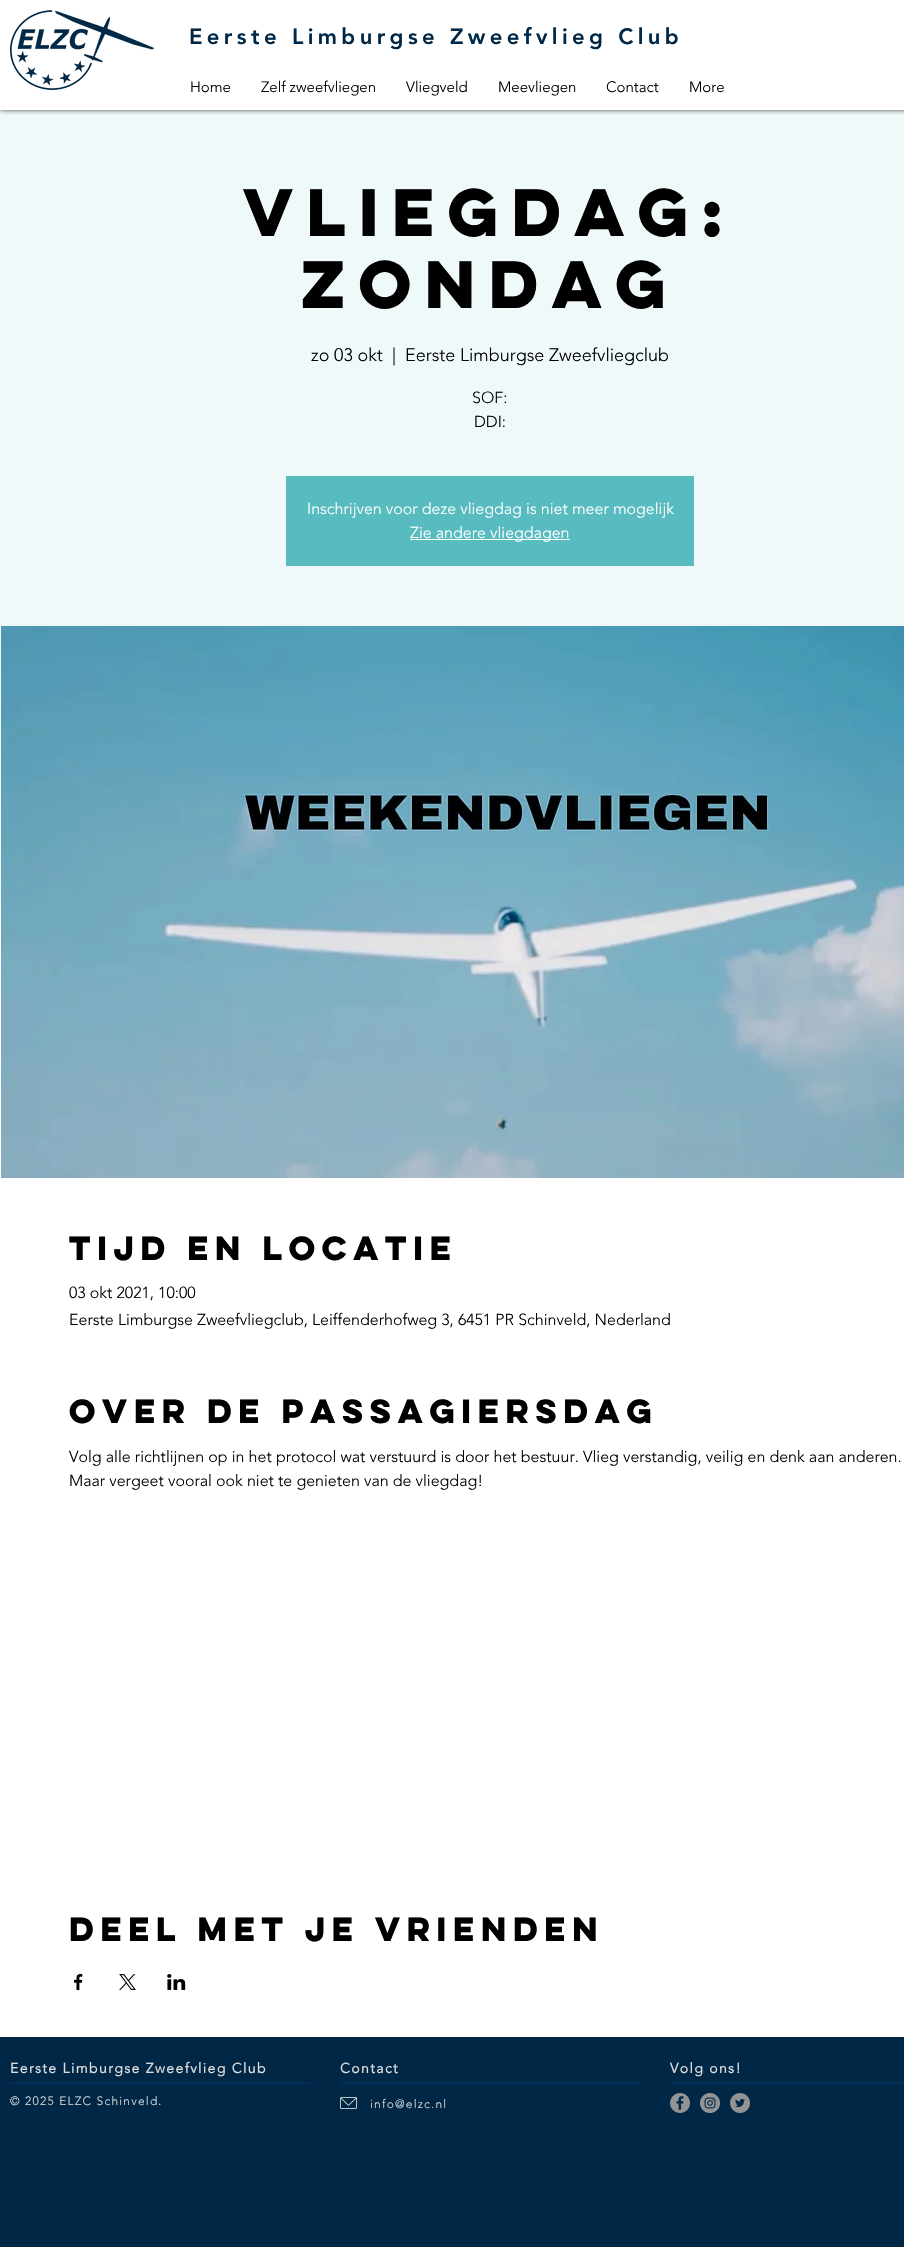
void draw(SkCanvas* canvas) {
    SkPaint paint;
    paint.setAntiAlias(true);
    auto face = [&](const char* family, int weight, float size, bool italic = false) {
        SkFontStyle style(weight, SkFontStyle::kNormal_Width,
            italic ? SkFontStyle::kItalic_Slant : SkFontStyle::kUpright_Slant);
        SkFont result(fontMgr->matchFamilyStyle(family, style), size);
        result.setSubpixel(true);
        return result;
    };
    auto write = [&](const char* s, float x, float y, const SkFont& font, SkColor color) {
        SkPaint ink(SkColor4f::FromColor(color));
        ink.setAntiAlias(true);
        canvas->drawString(s, x, y, font, ink);
    };
    auto writeSpaced = [&](const char* s, float x, float y, const SkFont& font, const SkPaint& ink, float letter, float word) {
        std::vector<SkGlyphID> glyphs(font.countText(s, strlen(s), SkTextEncoding::kUTF8));
        std::vector<float> xs(glyphs.size());
        font.textToGlyphs(s, strlen(s), SkTextEncoding::kUTF8, glyphs);
        font.getXPos(glyphs, xs, x);
        float extra = 0;
        for (size_t i = 0; i < glyphs.size(); i++) {
            xs[i] += extra;
            extra += letter + word * (glyphs[i] == font.unicharToGlyph(' '));
        }
        canvas->drawTextBlob(SkTextBlob::MakeFromPosHGlyphs(glyphs, xs, y, font), 0, 0, ink);
    };
    auto block = [&](float x, float y, float w, float h, SkColor color) {
        SkPaint ink(SkColor4f::FromColor(color));
        ink.setAntiAlias(true);
        canvas->drawRect(SkRect::MakeXYWH(x, y, w, h), ink);
    };
    auto paste = [&](const char* path, float x, float y, float w, float h) {
        auto image = SkImages::DeferredFromEncodedData(SkData::MakeFromFileName(path));
        canvas->drawImageRect(image, SkRect::MakeXYWH(x, y, w, h), SkSamplingOptions());
    };
    canvas->clear(SK_ColorWHITE);
    block(0, 110, 904, 792, SkColorSetRGB(239, 249, 249));
    canvas->save();
    canvas->clipRect(SkRect::MakeXYWH(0, 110, 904, 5));
    paint.setColor(SkColorSetARGB(179, 0, 0, 0));
    paint.setMaskFilter(SkMaskFilter::MakeBlur(kNormal_SkBlurStyle, 2.5f));
    canvas->drawRect(SkRect::MakeXYWH(0, 0, 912, 110), paint);
    paint.setMaskFilter(nullptr);
    canvas->restore();
    paste("pic1.png", 10, 10, 144, 80);
    auto kFont1 = face("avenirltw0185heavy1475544", 900, 22);
    paint.setColor(SkColorSetRGB(0, 40, 70));
    writeSpaced("Eerste Limburgse Zweefvlieg Club", 189, 44, kFont1, paint, 4.4f, 0);
    auto kFont2 = face("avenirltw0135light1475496", 300, 15);
    write("Home", 190, 92, kFont2, SK_ColorBLACK);
    write("Zelf zweefvliegen", 261, 92, kFont2, SK_ColorBLACK);
    write("Vliegveld", 406, 92, kFont2, SK_ColorBLACK);
    write("Meevliegen", 498, 92, kFont2, SK_ColorBLACK);
    write("Contact", 606, 92, kFont2, SK_ColorBLACK);
    write("More", 689, 92, kFont2, SK_ColorBLACK);
    auto kFont3 = face("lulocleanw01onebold", 700, 60);
    write("Vliegdag:", 243, 236, kFont3, SK_ColorBLACK);
    write("zondag", 301, 308, kFont3, SK_ColorBLACK);
    auto kFont4 = face("avenirltw0135light1475496", 300, 18);
    write("zo 03 okt", 311, 361, kFont4, SK_ColorBLACK);
    write("|", 392, 361, kFont4, SK_ColorBLACK);
    write("Eerste Limburgse Zweefvliegclub", 405, 361, kFont4, SK_ColorBLACK);
    auto kFont5 = face("avenirltw0135light1475496", 300, 16);
    write("SOF:", 472, 403, kFont5, SK_ColorBLACK);
    write("DDI:", 474, 427, kFont5, SK_ColorBLACK);
    block(286, 476, 408, 90, SkColorSetRGB(87, 187, 191));
    write("Inschrijven voor deze vliegdag is niet meer mogelijk", 307, 514, kFont5, SK_ColorWHITE);
    block(410, 539, 160, 1, SK_ColorWHITE);
    write("Zie andere vliegdagen", 410, 538, kFont5, SK_ColorWHITE);
    paste("pic2.png", 1, 626, 903, 552);
    auto kFont6 = face("lulocleanw01onebold", 700, 30);
    write("Tijd en locatie", 69, 1260, kFont6, SK_ColorBLACK);
    write("03 okt 2021, 10:00", 69, 1298, kFont5, SK_ColorBLACK);
    write("Eerste Limburgse Zweefvliegclub, Leiffenderhofweg 3, 6451 PR Schinveld, Nederland", 69, 1325, kFont5, SK_ColorBLACK);
    write("Over de passagiersdag", 69, 1423, kFont6, SK_ColorBLACK);
    write("Volg alle richtlijnen op in het protocol wat verstuurd is door het bestuur. Vlieg verstandig, veilig en denk aan anderen.", 69, 1462, kFont5, SK_ColorBLACK);
    write("Maar vergeet vooral ook niet te genieten van de vliegdag!", 69, 1486, kFont5, SK_ColorBLACK);
    write("Deel met je vrienden", 69, 1941, kFont6, SK_ColorBLACK);
    paste("pic3.png", 74, 1974, 9, 16);
    paste("pic4.png", 119, 1974, 17, 16);
    paste("pic5.png", 167, 1974, 19, 16);
    block(0, 2037, 904, 210, SkColorSetRGB(0, 40, 70));
    auto kFont7 = face("avenirltw0135light1475496", 700, 14);
    paint.setColor(SkColorSetRGB(219, 219, 219));
    writeSpaced("Eerste Limburgse Zweefvlieg Club", 10, 2073, kFont7, paint, 1.4f, 0);
    writeSpaced("Contact", 340, 2073, kFont7, paint, 1.4f, 0);
    writeSpaced("Volg ons!", 670, 2073, kFont7, paint, 1.4f, 0);
    block(10, 2082, 300, 2, SkColorSetRGB(0, 46, 93));
    block(340, 2082, 300, 2, SkColorSetRGB(0, 46, 93));
    block(670, 2082, 234, 2, SkColorSetRGB(0, 46, 93));
    auto kFont8 = face("avenirltw0135light1475496", 300, 12);
    writeSpaced("© 2025 ELZC Schinveld", 10, 2105, kFont8, paint, 1.2f, 0);
    auto kFont9 = face("Liberation Sans", 400, 12);
    writeSpaced(".", 158, 2105, kFont9, paint, 1.2f, 0);
    paste("pic6.png", 340, 2097, 17, 12);
    writeSpaced("info@elzc.nl", 370, 2108, kFont8, paint, 1.2f, 0);
    paste("pic7.png", 670, 2093, 20, 20);
    paste("pic8.png", 700, 2093, 20, 20);
    paste("pic9.png", 730, 2093, 20, 20);
}
